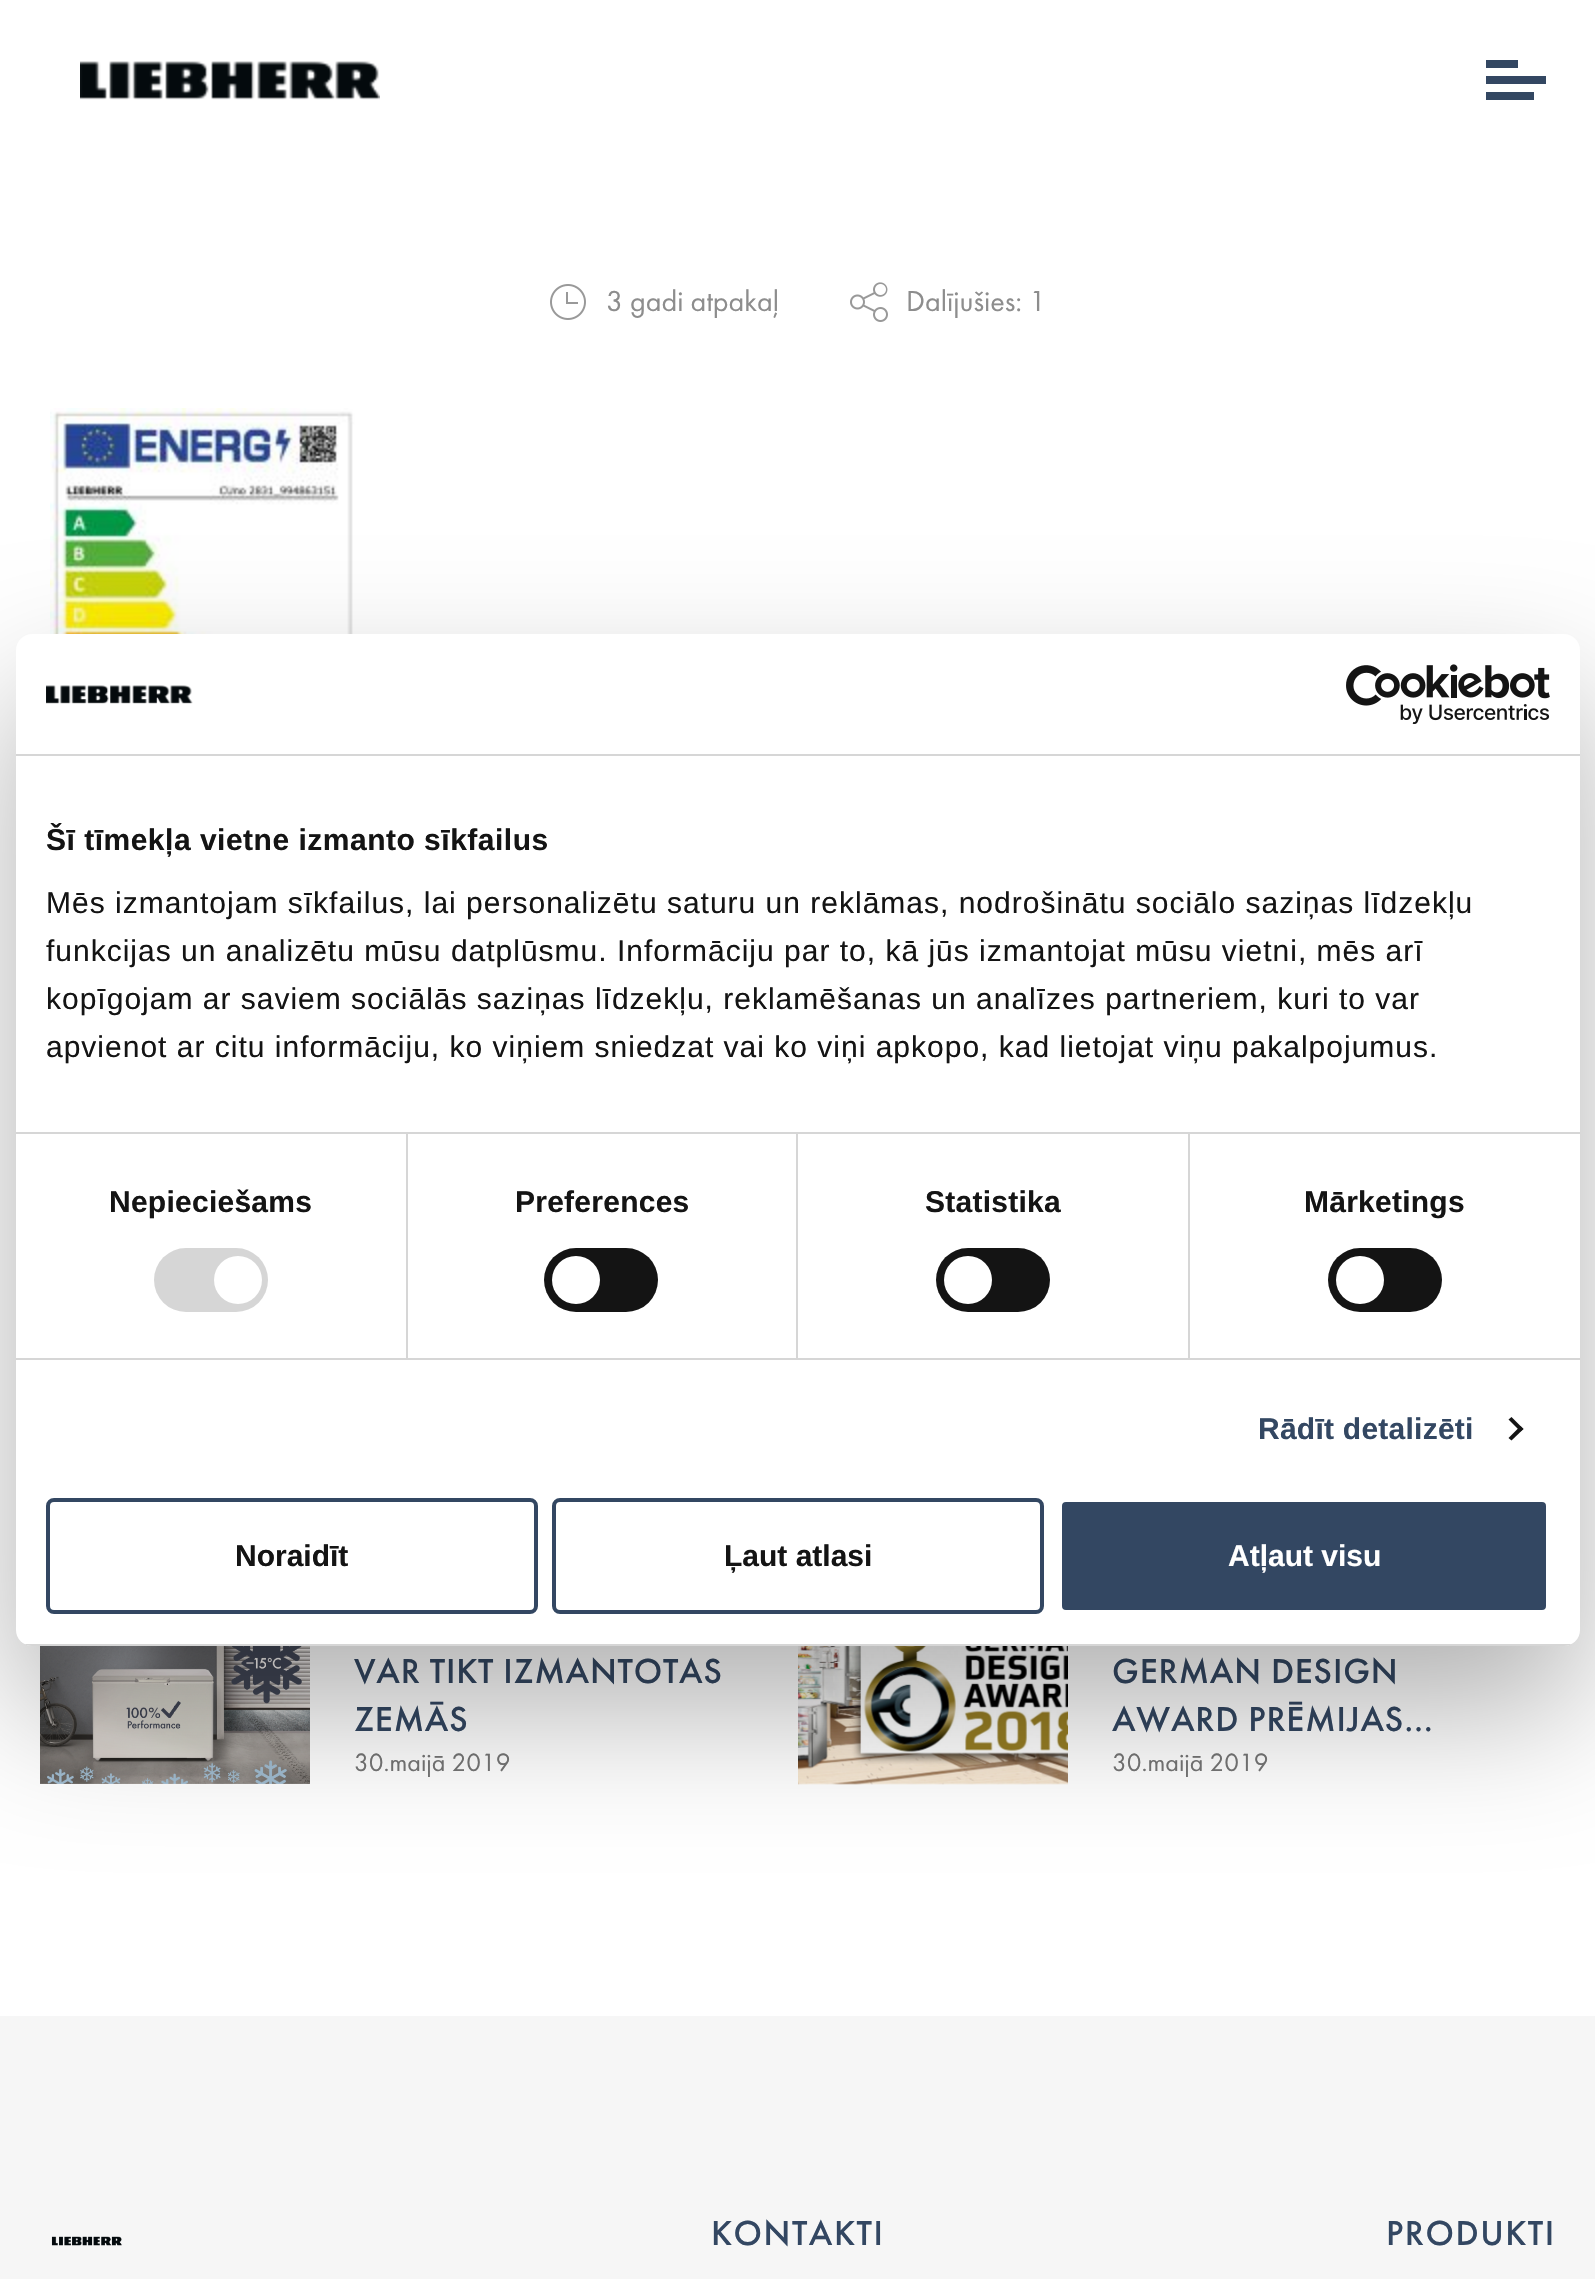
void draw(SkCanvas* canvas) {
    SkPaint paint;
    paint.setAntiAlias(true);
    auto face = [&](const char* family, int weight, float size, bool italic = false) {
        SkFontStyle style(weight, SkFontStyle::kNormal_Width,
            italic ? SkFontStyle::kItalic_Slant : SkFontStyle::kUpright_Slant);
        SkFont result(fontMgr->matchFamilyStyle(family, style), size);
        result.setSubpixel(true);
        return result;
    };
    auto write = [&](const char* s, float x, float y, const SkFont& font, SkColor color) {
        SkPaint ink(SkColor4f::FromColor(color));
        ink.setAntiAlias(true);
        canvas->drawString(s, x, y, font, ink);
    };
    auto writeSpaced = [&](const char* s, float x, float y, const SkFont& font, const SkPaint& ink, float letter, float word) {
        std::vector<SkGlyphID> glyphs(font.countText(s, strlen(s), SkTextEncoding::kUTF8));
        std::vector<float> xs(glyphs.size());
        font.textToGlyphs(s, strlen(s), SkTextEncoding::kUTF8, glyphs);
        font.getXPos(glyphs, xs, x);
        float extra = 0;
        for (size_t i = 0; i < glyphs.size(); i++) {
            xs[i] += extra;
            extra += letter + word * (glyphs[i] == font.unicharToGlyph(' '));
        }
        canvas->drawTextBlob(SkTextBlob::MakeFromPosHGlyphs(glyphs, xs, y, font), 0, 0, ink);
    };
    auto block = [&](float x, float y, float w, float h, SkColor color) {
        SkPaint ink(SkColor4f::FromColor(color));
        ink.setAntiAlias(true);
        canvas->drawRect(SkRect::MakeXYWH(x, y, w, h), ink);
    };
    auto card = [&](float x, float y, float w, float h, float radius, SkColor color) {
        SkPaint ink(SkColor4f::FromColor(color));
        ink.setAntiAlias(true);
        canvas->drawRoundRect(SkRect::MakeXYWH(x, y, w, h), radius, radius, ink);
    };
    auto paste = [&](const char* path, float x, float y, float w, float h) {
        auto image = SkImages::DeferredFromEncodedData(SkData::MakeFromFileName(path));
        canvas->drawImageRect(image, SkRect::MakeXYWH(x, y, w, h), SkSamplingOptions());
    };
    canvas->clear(SK_ColorWHITE);
    paste("pic1.png", 80, 61, 300, 39);
    paint.setColor(SkColorSetRGB(51, 71, 98));
    canvas->drawPath(SkPathBuilder().moveTo(1486, 60).lineTo(1518, 60).lineTo(1518, 68).lineTo(1486, 68).close().moveTo(1486, 76).lineTo(1546, 76).lineTo(1546, 84).lineTo(1486, 84).close().moveTo(1486, 92).lineTo(1534, 92).lineTo(1534, 100).lineTo(1486, 100).close().detach(), paint);
    paste("pic2.png", 550, 284, 36, 36);
    auto kFont1 = face("Futura PT", 400, 30);
    write("3 gadi atpakaļ", 606, 311, kFont1, SkColorSetRGB(141, 141, 141));
    paste("pic3.png", 850, 282, 38, 40);
    write("Dalījušies: 1", 906, 311, kFont1, SkColorSetRGB(141, 141, 141));
    paste("pic4.png", 50, 408, 306, 226);
    paste("pic5.png", 40, 1646, 270, 138);
    auto kFont2 = face("Futura PT", 500, 36);
    writeSpaced("VAR TIKT IZMANTOTAS", 354, 1683, kFont2, paint, 0.75f, 0);
    writeSpaced("ZEMĀS", 354, 1731, kFont2, paint, 0.75f, 0);
    auto kFont3 = face("Futura PT", 400, 26);
    write("30.maijā 2019", 354, 1771, kFont3, SkColorSetRGB(117, 117, 117));
    paste("pic6.png", 798, 1646, 270, 139);
    writeSpaced("GERMAN DESIGN", 1112, 1683, kFont2, paint, 0.75f, 0);
    writeSpaced("AWARD PRĒMIJAS...", 1112, 1731, kFont2, paint, 0.75f, 0);
    write("30.maijā 2019", 1112, 1771, kFont3, SkColorSetRGB(117, 117, 117));
    block(0, 2016, 1595, 263, SkColorSetRGB(246, 246, 246));
    paste("pic7.png", 51, 2236, 71, 10);
    writeSpaced("KONTAKTI", 711, 2245, kFont2, paint, 1.5f, 0);
    writeSpaced("PRODUKTI", 1386, 2245, kFont2, paint, 1.5f, 0);
    paint.setColor(SkColorSetARGB(77, 0, 0, 0));
    paint.setMaskFilter(SkMaskFilter::MakeBlur(kNormal_SkBlurStyle, 68));
    canvas->drawRoundRect(SkRect::MakeXYWH(16, 698, 1564, 1012), 16, 16, paint);
    paint.setMaskFilter(nullptr);
    card(16, 634, 1564, 1012, 16, SK_ColorWHITE);
    block(16, 754, 1564, 2, SkColorSetRGB(214, 214, 214));
    paste("pic8.png", 46, 685, 147, 19);
    paste("pic9.png", 1346, 664, 204, 60);
    block(16, 1132, 1564, 2, SkColorSetRGB(214, 214, 214));
    auto kFont4 = face("Liberation Sans", 700, 30);
    paint.setColor(SkColorSetRGB(20, 20, 20));
    writeSpaced("Šī tīmekļa vietne izmanto sīkfailus", 46, 850, kFont4, paint, 0.5f, 0);
    auto kFont5 = face("Liberation Sans", 400, 30);
    writeSpaced("Mēs izmantojam sīkfailus, lai personalizētu saturu un reklāmas, nodrošinātu sociālo saziņas līdzekļu", 46, 913, kFont5, paint, 1, 0);
    writeSpaced("funkcijas un analizētu mūsu datplūsmu. Informāciju par to, kā jūs izmantojat mūsu vietni, mēs arī", 46, 961, kFont5, paint, 1, 0);
    writeSpaced("kopīgojam ar saviem sociālās saziņas līdzekļu, reklamēšanas un analīzes partneriem, kuri to var", 46, 1009, kFont5, paint, 1, 0);
    writeSpaced("apvienot ar citu informāciju, ko viņiem sniedzat vai ko viņi apkopo, kad lietojat viņu pakalpojumus.", 46, 1057, kFont5, paint, 1, 0);
    block(16, 1358, 1564, 2, SkColorSetRGB(214, 214, 214));
    block(406, 1134, 2, 224, SkColorSetRGB(214, 214, 214));
    writeSpaced("Nepieciešams", 109, 1212, kFont4, paint, 0.25f, 0);
    card(154, 1248, 114, 64, 32, SkColorSetRGB(214, 214, 214));
    paint.setColor(SK_ColorWHITE);
    canvas->drawCircle(238, 1280, 24, paint);
    block(796, 1134, 2, 224, SkColorSetRGB(214, 214, 214));
    paint.setColor(SkColorSetRGB(20, 20, 20));
    writeSpaced("Preferences", 515, 1212, kFont4, paint, 0.25f, 0);
    card(544, 1248, 114, 64, 32, SkColorSetRGB(20, 20, 20));
    paint.setColor(SK_ColorWHITE);
    canvas->drawCircle(576, 1280, 24, paint);
    block(1188, 1134, 2, 224, SkColorSetRGB(214, 214, 214));
    paint.setColor(SkColorSetRGB(20, 20, 20));
    writeSpaced("Statistika", 925, 1212, kFont4, paint, 0.25f, 0);
    card(936, 1248, 114, 64, 32, SkColorSetRGB(20, 20, 20));
    paint.setColor(SK_ColorWHITE);
    canvas->drawCircle(968, 1280, 24, paint);
    paint.setColor(SkColorSetRGB(20, 20, 20));
    writeSpaced("Mārketings", 1304, 1212, kFont4, paint, 0.25f, 0);
    card(1328, 1248, 114, 64, 32, SkColorSetRGB(20, 20, 20));
    paint.setColor(SK_ColorWHITE);
    canvas->drawCircle(1360, 1280, 24, paint);
    paint.setColor(SkColorSetRGB(51, 71, 98));
    writeSpaced("Rādīt detalizēti", 1258, 1439, kFont4, paint, 0.25f, 0);
    paint.setColor(SkColorSetRGB(20, 20, 20));
    canvas->drawPath(SkPathBuilder().moveTo(1511.5f, 1417).lineTo(1523.5f, 1429).lineTo(1520.5f, 1431.5f).lineTo(1508.5f, 1419.5f).close().detach(), paint);
    canvas->drawPath(SkPathBuilder().moveTo(1520.5f, 1426).lineTo(1523.5f, 1429).lineTo(1511.5f, 1440.5f).lineTo(1508.5f, 1438).close().detach(), paint);
    canvas->save();
    canvas->clipPath(SkPathBuilder().moveTo(32, 634).lineTo(1564, 634).cubicTo(1573, 634, 1580, 641, 1580, 650).lineTo(1580, 1630).cubicTo(1580, 1639, 1573, 1646, 1564, 1646).lineTo(32, 1646).cubicTo(23, 1646, 16, 1639, 16, 1630).lineTo(16, 650).cubicTo(16, 641, 23, 634, 32, 634).close().detach(), true);
    block(16, 1644, 1564, 2, SkColorSetRGB(214, 214, 214));
    canvas->restore();
    paint.setStyle(SkPaint::kStroke_Style);
    paint.setStrokeWidth(4);
    paint.setColor(SkColorSetRGB(51, 71, 98));
    canvas->drawRoundRect(SkRect::MakeXYWH(48, 1500, 488, 112), 6, 6, paint);
    write("Noraidīt", 235, 1566, kFont4, SkColorSetRGB(20, 20, 20));
    canvas->drawRoundRect(SkRect::MakeXYWH(554, 1500, 488, 112), 6, 6, paint);
    write("Ļaut atlasi", 724, 1566, kFont4, SkColorSetRGB(20, 20, 20));
    paint.setStyle(SkPaint::kFill_Style);
    canvas->drawRoundRect(SkRect::MakeXYWH(1060, 1500, 488, 112), 6, 6, paint);
    paint.setStyle(SkPaint::kStroke_Style);
    paint.setColor(SK_ColorWHITE);
    canvas->drawRoundRect(SkRect::MakeXYWH(1060, 1500, 488, 112), 6, 6, paint);
    write("Atļaut visu", 1228, 1566, kFont4, SK_ColorWHITE);
}
